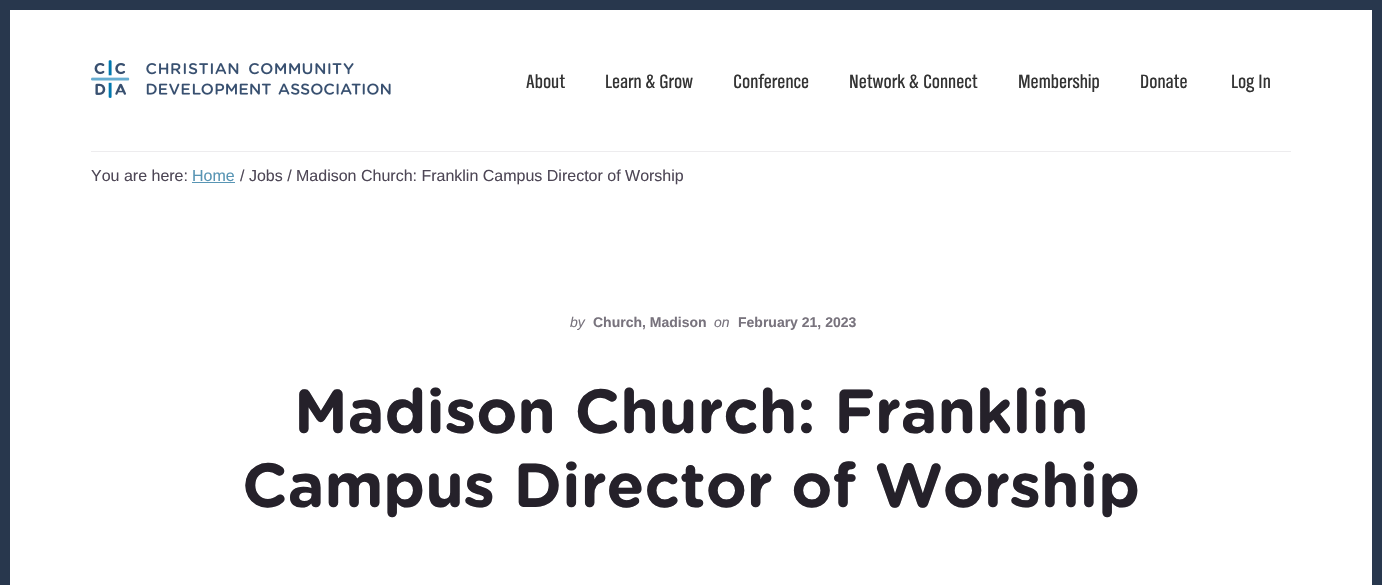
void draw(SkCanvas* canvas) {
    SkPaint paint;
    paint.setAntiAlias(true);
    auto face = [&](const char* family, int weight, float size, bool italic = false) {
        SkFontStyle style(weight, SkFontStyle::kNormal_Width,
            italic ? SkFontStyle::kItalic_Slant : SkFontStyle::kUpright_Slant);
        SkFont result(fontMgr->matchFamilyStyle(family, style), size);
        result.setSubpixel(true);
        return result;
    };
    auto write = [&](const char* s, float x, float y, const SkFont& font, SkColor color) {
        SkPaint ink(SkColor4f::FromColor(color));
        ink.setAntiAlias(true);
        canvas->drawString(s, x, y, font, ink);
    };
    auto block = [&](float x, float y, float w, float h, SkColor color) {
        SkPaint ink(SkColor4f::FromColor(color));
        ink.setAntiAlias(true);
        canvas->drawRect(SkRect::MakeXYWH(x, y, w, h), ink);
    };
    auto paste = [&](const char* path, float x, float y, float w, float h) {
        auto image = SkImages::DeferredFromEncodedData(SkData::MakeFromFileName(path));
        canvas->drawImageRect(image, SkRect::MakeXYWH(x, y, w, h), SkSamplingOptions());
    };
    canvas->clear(SkColorSetRGB(40, 55, 77));
    block(10, 10, 1362, 575, SK_ColorWHITE);
    block(91, 151, 1200, 1, SkColorSetRGB(237, 236, 238));
    paste("pic1.png", 91, 60, 300, 38);
    auto kFont1 = face("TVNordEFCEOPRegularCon", 400, 20);
    write("About", 526, 88, kFont1, SkColorSetRGB(51, 51, 51));
    write("Learn & Grow", 605, 88, kFont1, SkColorSetRGB(51, 51, 51));
    write("Conference", 733, 88, kFont1, SkColorSetRGB(51, 51, 51));
    write("Network & Connect", 849, 88, kFont1, SkColorSetRGB(51, 51, 51));
    write("Membership", 1018, 88, kFont1, SkColorSetRGB(51, 51, 51));
    write("Donate", 1140, 88, kFont1, SkColorSetRGB(51, 51, 51));
    write("Log In", 1231, 88, kFont1, SkColorSetRGB(51, 51, 51));
    auto kFont2 = face("Liberation Sans", 400, 16);
    write("You are here:", 91, 181, kFont2, SkColorSetRGB(78, 71, 86));
    write("Home", 192, 181, kFont2, SkColorSetRGB(88, 149, 180));
    block(192, 182, 43, 1, SkColorSetRGB(88, 149, 180));
    write("/ Jobs / Madison Church: Franklin Campus Director of Worship", 240, 181, kFont2, SkColorSetRGB(78, 71, 86));
    auto kFont3 = face("Liberation Sans", 400, 14, true);
    write("by", 570, 327, kFont3, SkColorSetRGB(120, 115, 125));
    auto kFont4 = face("Liberation Sans", 700, 14);
    write("Church, Madison", 593, 327, kFont4, SkColorSetRGB(120, 115, 125));
    write("on", 714, 327, kFont3, SkColorSetRGB(120, 115, 125));
    write("February 21, 2023", 738, 327, kFont4, SkColorSetRGB(120, 115, 125));
    auto kFont5 = face("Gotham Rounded", 700, 62);
    write("Madison Church: Franklin", 294, 433, kFont5, SkColorSetRGB(37, 33, 42));
    write("Campus Director of Worship", 242, 507, kFont5, SkColorSetRGB(37, 33, 42));
}
